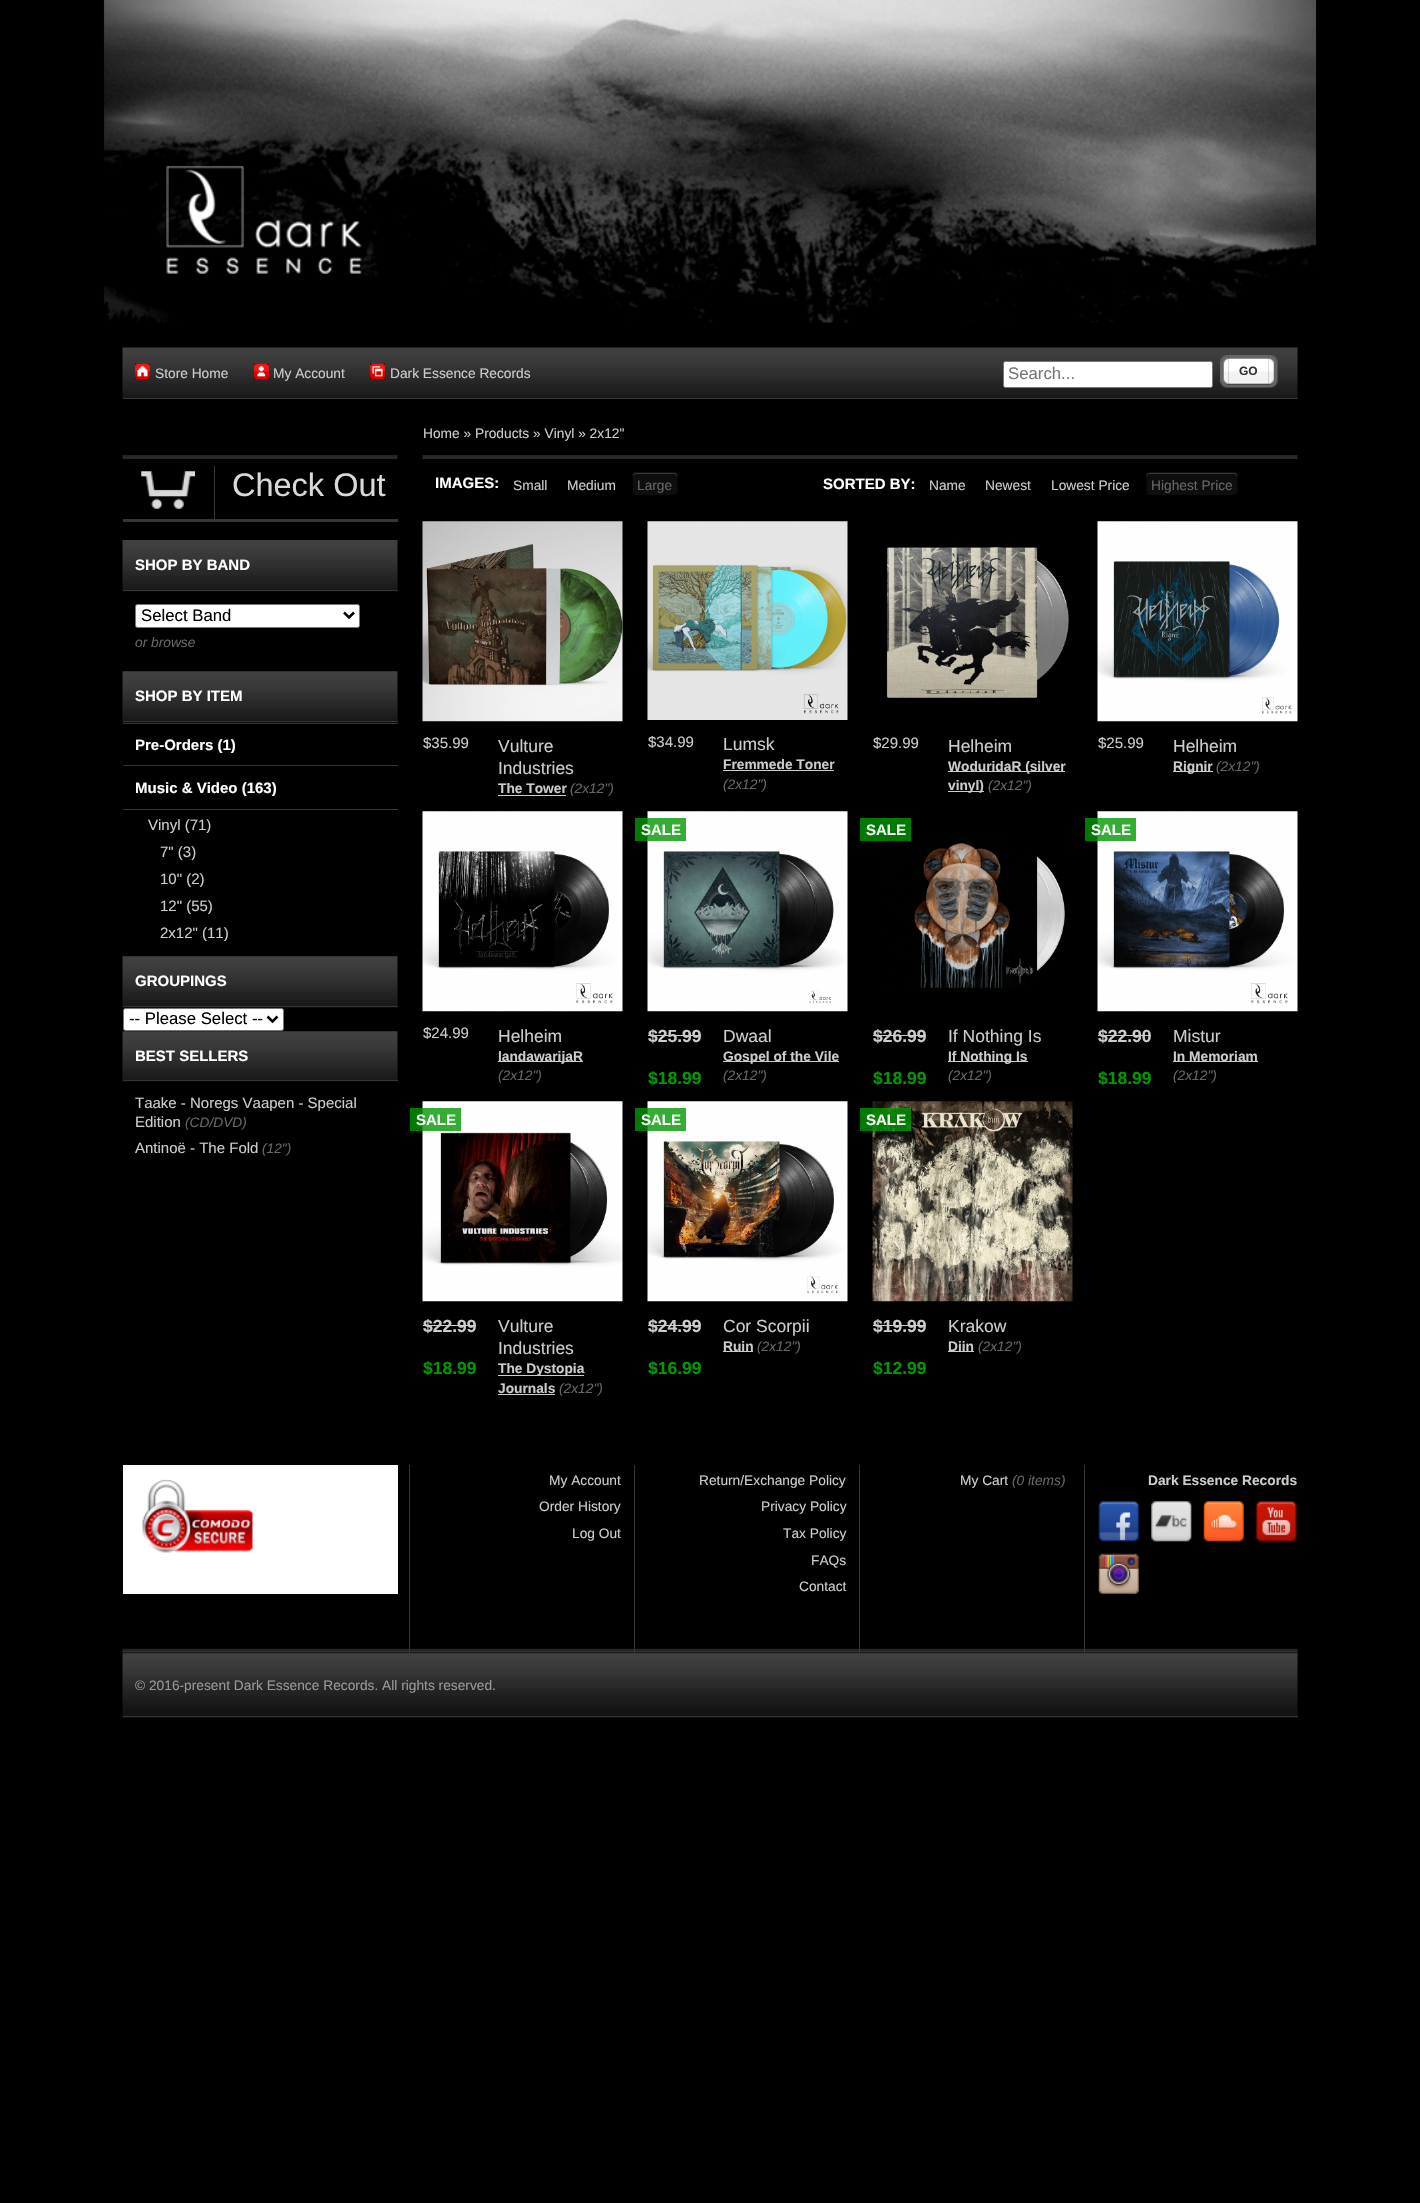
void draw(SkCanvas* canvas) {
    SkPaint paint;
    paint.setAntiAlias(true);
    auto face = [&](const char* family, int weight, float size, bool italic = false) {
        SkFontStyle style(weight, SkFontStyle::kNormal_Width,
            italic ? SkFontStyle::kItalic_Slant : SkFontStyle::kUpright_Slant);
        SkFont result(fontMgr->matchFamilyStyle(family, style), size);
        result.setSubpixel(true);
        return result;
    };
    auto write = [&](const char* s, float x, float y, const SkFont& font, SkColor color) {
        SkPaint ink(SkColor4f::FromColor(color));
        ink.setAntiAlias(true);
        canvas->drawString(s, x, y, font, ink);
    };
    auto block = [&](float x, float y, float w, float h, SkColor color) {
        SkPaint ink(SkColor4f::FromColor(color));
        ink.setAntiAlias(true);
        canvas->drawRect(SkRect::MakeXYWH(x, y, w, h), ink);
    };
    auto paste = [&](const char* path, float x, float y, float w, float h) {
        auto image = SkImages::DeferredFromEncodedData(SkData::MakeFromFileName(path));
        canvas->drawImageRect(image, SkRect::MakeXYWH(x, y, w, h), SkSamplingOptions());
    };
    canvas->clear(SK_ColorBLACK);
    paste("pic1.png", 103, 0, 1214, 323);
    paste("pic2.png", 122, 347, 1176, 52);
    block(123, 398, 1175, 1, SkColorSetRGB(54, 54, 54));
    block(135, 364, 15, 15, SkColorSetRGB(255, 0, 0));
    paste("pic3.png", 135, 363, 15, 16);
    auto kFont1 = face("Liberation Sans", 400, 13.75f);
    write("Store Home", 155, 378, kFont1, SkColorSetRGB(204, 204, 204));
    block(254, 364, 15, 15, SkColorSetRGB(255, 0, 0));
    paste("pic4.png", 253, 363, 16, 16);
    write("My Account", 273, 378, kFont1, SkColorSetRGB(204, 204, 204));
    block(370, 364, 15, 15, SkColorSetRGB(255, 0, 0));
    paste("pic5.png", 370, 363, 15, 16);
    write("Dark Essence Records", 390, 378, kFont1, SkColorSetRGB(204, 204, 204));
    paint.setColor(SK_ColorWHITE);
    canvas->drawRoundRect(SkRect::MakeXYWH(1003.5f, 361.5f, 209, 26), 2, 2, paint);
    paint.setStyle(SkPaint::kStroke_Style);
    paint.setStrokeWidth(1);
    paint.setColor(SkColorSetRGB(118, 118, 118));
    canvas->drawRoundRect(SkRect::MakeXYWH(1003.5f, 361.5f, 209, 26), 2, 2, paint);
    auto kFont2 = face("Liberation Sans", 400, 16.75f);
    write("Search...", 1008, 379, kFont2, SkColorSetRGB(117, 117, 117));
    paste("pic6.png", 1220, 355, 9, 33);
    paste("pic7.png", 1228, 355, 41, 33);
    auto kFont3 = face("Liberation Sans", 700, 12);
    write("GO", 1239, 375, kFont3, SkColorSetRGB(51, 51, 51));
    paste("pic8.png", 1268, 355, 10, 33);
    paste("pic9.png", 122, 455, 276, 4);
    block(123, 519, 275, 3, SkColorSetRGB(54, 54, 54));
    paste("pic10.png", 141, 471, 54, 38);
    block(214, 466, 1, 53, SkColorSetRGB(54, 54, 54));
    auto kFont4 = face("Liberation Sans", 400, 32.5f);
    write("Check Out", 232, 496, kFont4, SkColorSetRGB(217, 217, 217));
    paste("pic11.png", 122, 540, 276, 52);
    block(123, 590, 275, 1, SkColorSetRGB(54, 54, 54));
    auto kFont5 = face("Liberation Sans", 700, 15);
    write("SHOP BY BAND", 135, 570, kFont5, SK_ColorWHITE);
    paint.setStyle(SkPaint::kFill_Style);
    paint.setColor(SK_ColorWHITE);
    canvas->drawRoundRect(SkRect::MakeXYWH(135.5f, 604.5f, 224, 23), 2, 2, paint);
    paint.setStyle(SkPaint::kStroke_Style);
    paint.setColor(SkColorSetRGB(118, 118, 118));
    canvas->drawRoundRect(SkRect::MakeXYWH(135.5f, 604.5f, 224, 23), 2, 2, paint);
    paint.setStrokeWidth(2.5f);
    paint.setColor(SK_ColorBLACK);
    canvas->drawPath(SkPathBuilder().moveTo(344, 612.5f).lineTo(349, 617.5f).lineTo(354, 612.5f).detach(), paint);
    write("Select Band", 141, 621, kFont2, SK_ColorBLACK);
    auto kFont6 = face("Liberation Sans", 400, 13.75f, true);
    write("or browse", 135, 647, kFont6, SkColorSetRGB(102, 102, 102));
    paste("pic12.png", 122, 671, 276, 52);
    block(123, 721, 275, 1, SkColorSetRGB(54, 54, 54));
    write("SHOP BY ITEM", 135, 701, kFont5, SK_ColorWHITE);
    block(123, 723, 275, 1, SkColorSetRGB(54, 54, 54));
    block(123, 765, 275, 1, SkColorSetRGB(54, 54, 54));
    write("Pre-Orders (1)", 135, 750, kFont5, SK_ColorWHITE);
    block(123, 809, 275, 1, SkColorSetRGB(54, 54, 54));
    write("Music & Video (163)", 135, 793, kFont5, SK_ColorWHITE);
    auto kFont7 = face("Liberation Sans", 400, 15);
    write("Vinyl (71)", 148, 830, kFont7, SkColorSetRGB(204, 204, 204));
    write("7\" (3)", 160, 857, kFont7, SkColorSetRGB(204, 204, 204));
    write("10\" (2)", 160, 884, kFont7, SkColorSetRGB(204, 204, 204));
    write("12\" (55)", 160, 911, kFont7, SkColorSetRGB(204, 204, 204));
    write("2x12\" (11)", 160, 938, kFont7, SkColorSetRGB(204, 204, 204));
    paste("pic13.png", 122, 956, 276, 52);
    block(123, 1006, 275, 1, SkColorSetRGB(54, 54, 54));
    write("GROUPINGS", 135, 986, kFont5, SK_ColorWHITE);
    paint.setStyle(SkPaint::kFill_Style);
    paint.setColor(SK_ColorWHITE);
    canvas->drawRoundRect(SkRect::MakeXYWH(123.5f, 1008.5f, 160, 22), 2, 2, paint);
    paint.setStyle(SkPaint::kStroke_Style);
    paint.setStrokeWidth(1);
    paint.setColor(SkColorSetRGB(118, 118, 118));
    canvas->drawRoundRect(SkRect::MakeXYWH(123.5f, 1008.5f, 160, 22), 2, 2, paint);
    paint.setStrokeWidth(2.5f);
    paint.setColor(SK_ColorBLACK);
    canvas->drawPath(SkPathBuilder().moveTo(267.5f, 1016.5f).lineTo(272.5f, 1021.5f).lineTo(277.5f, 1016.5f).detach(), paint);
    write("-- Please Select --", 129, 1024, kFont2, SK_ColorBLACK);
    paste("pic14.png", 122, 1031, 276, 51);
    block(123, 1080, 275, 1, SkColorSetRGB(54, 54, 54));
    write("BEST SELLERS", 135, 1061, kFont5, SK_ColorWHITE);
    write("Taake - Noregs Vaapen - Special", 135, 1108, kFont7, SkColorSetRGB(204, 204, 204));
    write("Edition", 135, 1127, kFont7, SkColorSetRGB(204, 204, 204));
    write("(CD/DVD)", 185, 1127, kFont6, SkColorSetRGB(102, 102, 102));
    write("Antinoë - The Fold", 135, 1153, kFont7, SkColorSetRGB(204, 204, 204));
    write("(12\")", 262, 1153, kFont6, SkColorSetRGB(102, 102, 102));
    paste("pic15.png", 422, 455, 876, 4);
    write("Home » Products » Vinyl » 2x12\"", 423, 438, kFont1, SkColorSetRGB(204, 204, 204));
    write("IMAGES:", 435, 488, kFont5, SK_ColorWHITE);
    write("Small", 513, 490, kFont1, SkColorSetRGB(204, 204, 204));
    write("Medium", 567, 490, kFont1, SkColorSetRGB(204, 204, 204));
    paste("pic16.png", 632, 472, 3, 23);
    paste("pic17.png", 635, 472, 40, 23);
    write("Large", 637, 490, kFont1, SkColorSetRGB(102, 102, 102));
    paste("pic18.png", 675, 472, 3, 23);
    write("SORTED BY:", 823, 489, kFont5, SK_ColorWHITE);
    write("Name", 929, 490, kFont1, SkColorSetRGB(204, 204, 204));
    write("Newest", 985, 490, kFont1, SkColorSetRGB(204, 204, 204));
    write("Lowest Price", 1051, 490, kFont1, SkColorSetRGB(204, 204, 204));
    paste("pic19.png", 1146, 472, 3, 23);
    paste("pic20.png", 1148, 472, 87, 23);
    write("Highest Price", 1151, 490, kFont1, SkColorSetRGB(102, 102, 102));
    paste("pic18.png", 1235, 472, 3, 23);
    paste("pic21.png", 422, 521, 201, 201);
    write("$35.99", 423, 748, kFont7, SkColorSetRGB(204, 204, 204));
    auto kFont8 = face("Liberation Sans", 400, 17.5f);
    write("Vulture", 498, 752, kFont8, SkColorSetRGB(204, 204, 204));
    write("Industries", 498, 774, kFont8, SkColorSetRGB(204, 204, 204));
    auto kFont9 = face("Liberation Sans", 700, 13.75f);
    write("The Tower", 498, 793, kFont9, SkColorSetRGB(204, 204, 204));
    block(498, 795, 68, 1, SkColorSetRGB(204, 204, 204));
    write("(2x12\")", 570, 793, kFont6, SkColorSetRGB(102, 102, 102));
    paste("pic22.png", 647, 521, 201, 199);
    write("$34.99", 648, 747, kFont7, SkColorSetRGB(204, 204, 204));
    write("Lumsk", 723, 750, kFont8, SkColorSetRGB(204, 204, 204));
    write("Fremmede Toner", 723, 769, kFont9, SkColorSetRGB(204, 204, 204));
    block(723, 770, 111, 1, SkColorSetRGB(204, 204, 204));
    write("(2x12\")", 723, 789, kFont6, SkColorSetRGB(102, 102, 102));
    paste("pic23.png", 886, 546, 183, 152);
    write("$29.99", 873, 748, kFont7, SkColorSetRGB(204, 204, 204));
    write("Helheim", 948, 752, kFont8, SkColorSetRGB(204, 204, 204));
    block(948, 771, 117, 1, SkColorSetRGB(204, 204, 204));
    write("WoduridaR (silver", 948, 771, kFont9, SkColorSetRGB(204, 204, 204));
    block(948, 791, 36, 1, SkColorSetRGB(204, 204, 204));
    write("vinyl)", 948, 790, kFont9, SkColorSetRGB(204, 204, 204));
    write("(2x12\")", 988, 790, kFont6, SkColorSetRGB(102, 102, 102));
    paste("pic24.png", 1097, 521, 201, 201);
    write("$25.99", 1098, 748, kFont7, SkColorSetRGB(204, 204, 204));
    write("Helheim", 1173, 752, kFont8, SkColorSetRGB(204, 204, 204));
    block(1173, 771, 40, 1, SkColorSetRGB(204, 204, 204));
    write("Rignir", 1173, 771, kFont9, SkColorSetRGB(204, 204, 204));
    write("(2x12\")", 1216, 771, kFont6, SkColorSetRGB(102, 102, 102));
    paste("pic25.png", 422, 811, 201, 201);
    write("$24.99", 423, 1038, kFont7, SkColorSetRGB(204, 204, 204));
    write("Helheim", 498, 1042, kFont8, SkColorSetRGB(204, 204, 204));
    block(498, 1061, 85, 1, SkColorSetRGB(204, 204, 204));
    write("landawarijaR", 498, 1061, kFont9, SkColorSetRGB(204, 204, 204));
    write("(2x12\")", 498, 1080, kFont6, SkColorSetRGB(102, 102, 102));
    paste("pic26.png", 647, 811, 201, 201);
    block(635, 818, 51, 23, SkColorSetARGB(204, 0, 153, 0));
    write("SALE", 641, 835, kFont5, SK_ColorWHITE);
    auto kFont10 = face("Liberation Sans", 700, 17.5f);
    write("$25.99", 648, 1042, kFont10, SkColorSetRGB(204, 204, 204));
    block(648, 1035, 53, 1, SkColorSetRGB(204, 204, 204));
    write("$18.99", 648, 1084, kFont10, SkColorSetRGB(0, 153, 0));
    write("Dwaal", 723, 1042, kFont8, SkColorSetRGB(204, 204, 204));
    block(723, 1061, 116, 1, SkColorSetRGB(204, 204, 204));
    write("Gospel of the Vile", 723, 1061, kFont9, SkColorSetRGB(204, 204, 204));
    write("(2x12\")", 723, 1080, kFont6, SkColorSetRGB(102, 102, 102));
    paste("pic27.png", 887, 838, 178, 150);
    block(860, 818, 51, 23, SkColorSetRGB(0, 122, 0));
    write("SALE", 866, 835, kFont5, SK_ColorWHITE);
    write("$26.99", 873, 1042, kFont10, SkColorSetRGB(204, 204, 204));
    block(873, 1035, 53, 1, SkColorSetRGB(204, 204, 204));
    write("$18.99", 873, 1084, kFont10, SkColorSetRGB(0, 153, 0));
    write("If Nothing Is", 948, 1042, kFont8, SkColorSetRGB(204, 204, 204));
    block(948, 1061, 80, 1, SkColorSetRGB(204, 204, 204));
    write("If Nothing Is", 948, 1061, kFont9, SkColorSetRGB(204, 204, 204));
    write("(2x12\")", 948, 1080, kFont6, SkColorSetRGB(102, 102, 102));
    paste("pic28.png", 1097, 811, 201, 201);
    block(1085, 818, 51, 23, SkColorSetARGB(204, 0, 153, 0));
    write("SALE", 1091, 835, kFont5, SK_ColorWHITE);
    write("$22.90", 1098, 1042, kFont10, SkColorSetRGB(204, 204, 204));
    block(1098, 1035, 53, 1, SkColorSetRGB(204, 204, 204));
    write("$18.99", 1098, 1084, kFont10, SkColorSetRGB(0, 153, 0));
    write("Mistur", 1173, 1042, kFont8, SkColorSetRGB(204, 204, 204));
    block(1173, 1061, 85, 1, SkColorSetRGB(204, 204, 204));
    write("In Memoriam", 1173, 1061, kFont9, SkColorSetRGB(204, 204, 204));
    write("(2x12\")", 1173, 1080, kFont6, SkColorSetRGB(102, 102, 102));
    paste("pic29.png", 422, 1101, 201, 201);
    block(410, 1108, 51, 23, SkColorSetARGB(204, 0, 153, 0));
    write("SALE", 416, 1125, kFont5, SK_ColorWHITE);
    write("$22.99", 423, 1332, kFont10, SkColorSetRGB(204, 204, 204));
    block(423, 1325, 53, 1, SkColorSetRGB(204, 204, 204));
    write("$18.99", 423, 1374, kFont10, SkColorSetRGB(0, 153, 0));
    write("Vulture", 498, 1332, kFont8, SkColorSetRGB(204, 204, 204));
    write("Industries", 498, 1354, kFont8, SkColorSetRGB(204, 204, 204));
    block(498, 1375, 86, 1, SkColorSetRGB(204, 204, 204));
    write("The Dystopia", 498, 1373, kFont9, SkColorSetRGB(204, 204, 204));
    write("Journals", 498, 1393, kFont9, SkColorSetRGB(204, 204, 204));
    block(498, 1394, 57, 1, SkColorSetRGB(204, 204, 204));
    write("(2x12\")", 559, 1393, kFont6, SkColorSetRGB(102, 102, 102));
    paste("pic30.png", 647, 1101, 201, 201);
    block(635, 1108, 51, 23, SkColorSetARGB(204, 0, 153, 0));
    write("SALE", 641, 1125, kFont5, SK_ColorWHITE);
    write("$24.99", 648, 1332, kFont10, SkColorSetRGB(204, 204, 204));
    block(648, 1325, 53, 1, SkColorSetRGB(204, 204, 204));
    write("$16.99", 648, 1374, kFont10, SkColorSetRGB(0, 153, 0));
    write("Cor Scorpii", 723, 1332, kFont8, SkColorSetRGB(204, 204, 204));
    block(723, 1351, 30, 1, SkColorSetRGB(204, 204, 204));
    write("Ruin", 723, 1351, kFont9, SkColorSetRGB(204, 204, 204));
    write("(2x12\")", 757, 1351, kFont6, SkColorSetRGB(102, 102, 102));
    paste("pic31.png", 872, 1101, 201, 201);
    block(860, 1108, 51, 23, SkColorSetARGB(204, 0, 153, 0));
    write("SALE", 866, 1125, kFont5, SK_ColorWHITE);
    write("$19.99", 873, 1332, kFont10, SkColorSetRGB(204, 204, 204));
    block(873, 1325, 53, 1, SkColorSetRGB(204, 204, 204));
    write("$12.99", 873, 1374, kFont10, SkColorSetRGB(0, 153, 0));
    write("Krakow", 948, 1332, kFont8, SkColorSetRGB(204, 204, 204));
    write("Diin", 948, 1351, kFont9, SkColorSetRGB(204, 204, 204));
    block(948, 1351, 26, 1, SkColorSetRGB(204, 204, 204));
    write("(2x12\")", 978, 1351, kFont6, SkColorSetRGB(102, 102, 102));
    paste("pic32.png", 122, 1648, 1176, 5);
    block(409, 1465, 1, 188, SkColorSetRGB(54, 54, 54));
    block(123, 1465, 275, 129, SK_ColorWHITE);
    paste("pic33.png", 142, 1479, 111, 74);
    block(634, 1465, 1, 188, SkColorSetRGB(54, 54, 54));
    write("My Account", 549, 1485, kFont1, SkColorSetRGB(204, 204, 204));
    write("Order History", 539, 1511, kFont1, SkColorSetRGB(204, 204, 204));
    write("Log Out", 572, 1538, kFont1, SkColorSetRGB(204, 204, 204));
    block(859, 1465, 1, 188, SkColorSetRGB(54, 54, 54));
    write("Return/Exchange Policy", 699, 1485, kFont1, SkColorSetRGB(204, 204, 204));
    write("Privacy Policy", 761, 1511, kFont1, SkColorSetRGB(204, 204, 204));
    write("Tax Policy", 783, 1538, kFont1, SkColorSetRGB(204, 204, 204));
    write("FAQs", 811, 1565, kFont1, SkColorSetRGB(204, 204, 204));
    write("Contact", 799, 1591, kFont1, SkColorSetRGB(204, 204, 204));
    block(1084, 1465, 1, 188, SkColorSetRGB(54, 54, 54));
    write("My Cart", 960, 1485, kFont1, SkColorSetRGB(204, 204, 204));
    write("(0 items)", 1012, 1485, kFont6, SkColorSetRGB(102, 102, 102));
    write("Dark Essence Records", 1148, 1485, kFont9, SkColorSetRGB(204, 204, 204));
    paste("pic34.png", 1098, 1501, 41, 41);
    paste("pic35.png", 1151, 1501, 41, 41);
    paste("pic36.png", 1203, 1501, 41, 41);
    paste("pic37.png", 1256, 1501, 41, 41);
    paste("pic38.png", 1098, 1553, 41, 41);
    paste("pic39.png", 122, 1653, 1176, 65);
    block(123, 1653, 1175, 1, SkColorSetRGB(54, 54, 54));
    block(123, 1716, 1175, 1, SkColorSetRGB(54, 54, 54));
    write("© 2016-present Dark Essence Records. All rights reserved.", 135, 1690, kFont1, SkColorSetRGB(153, 153, 153));
}
